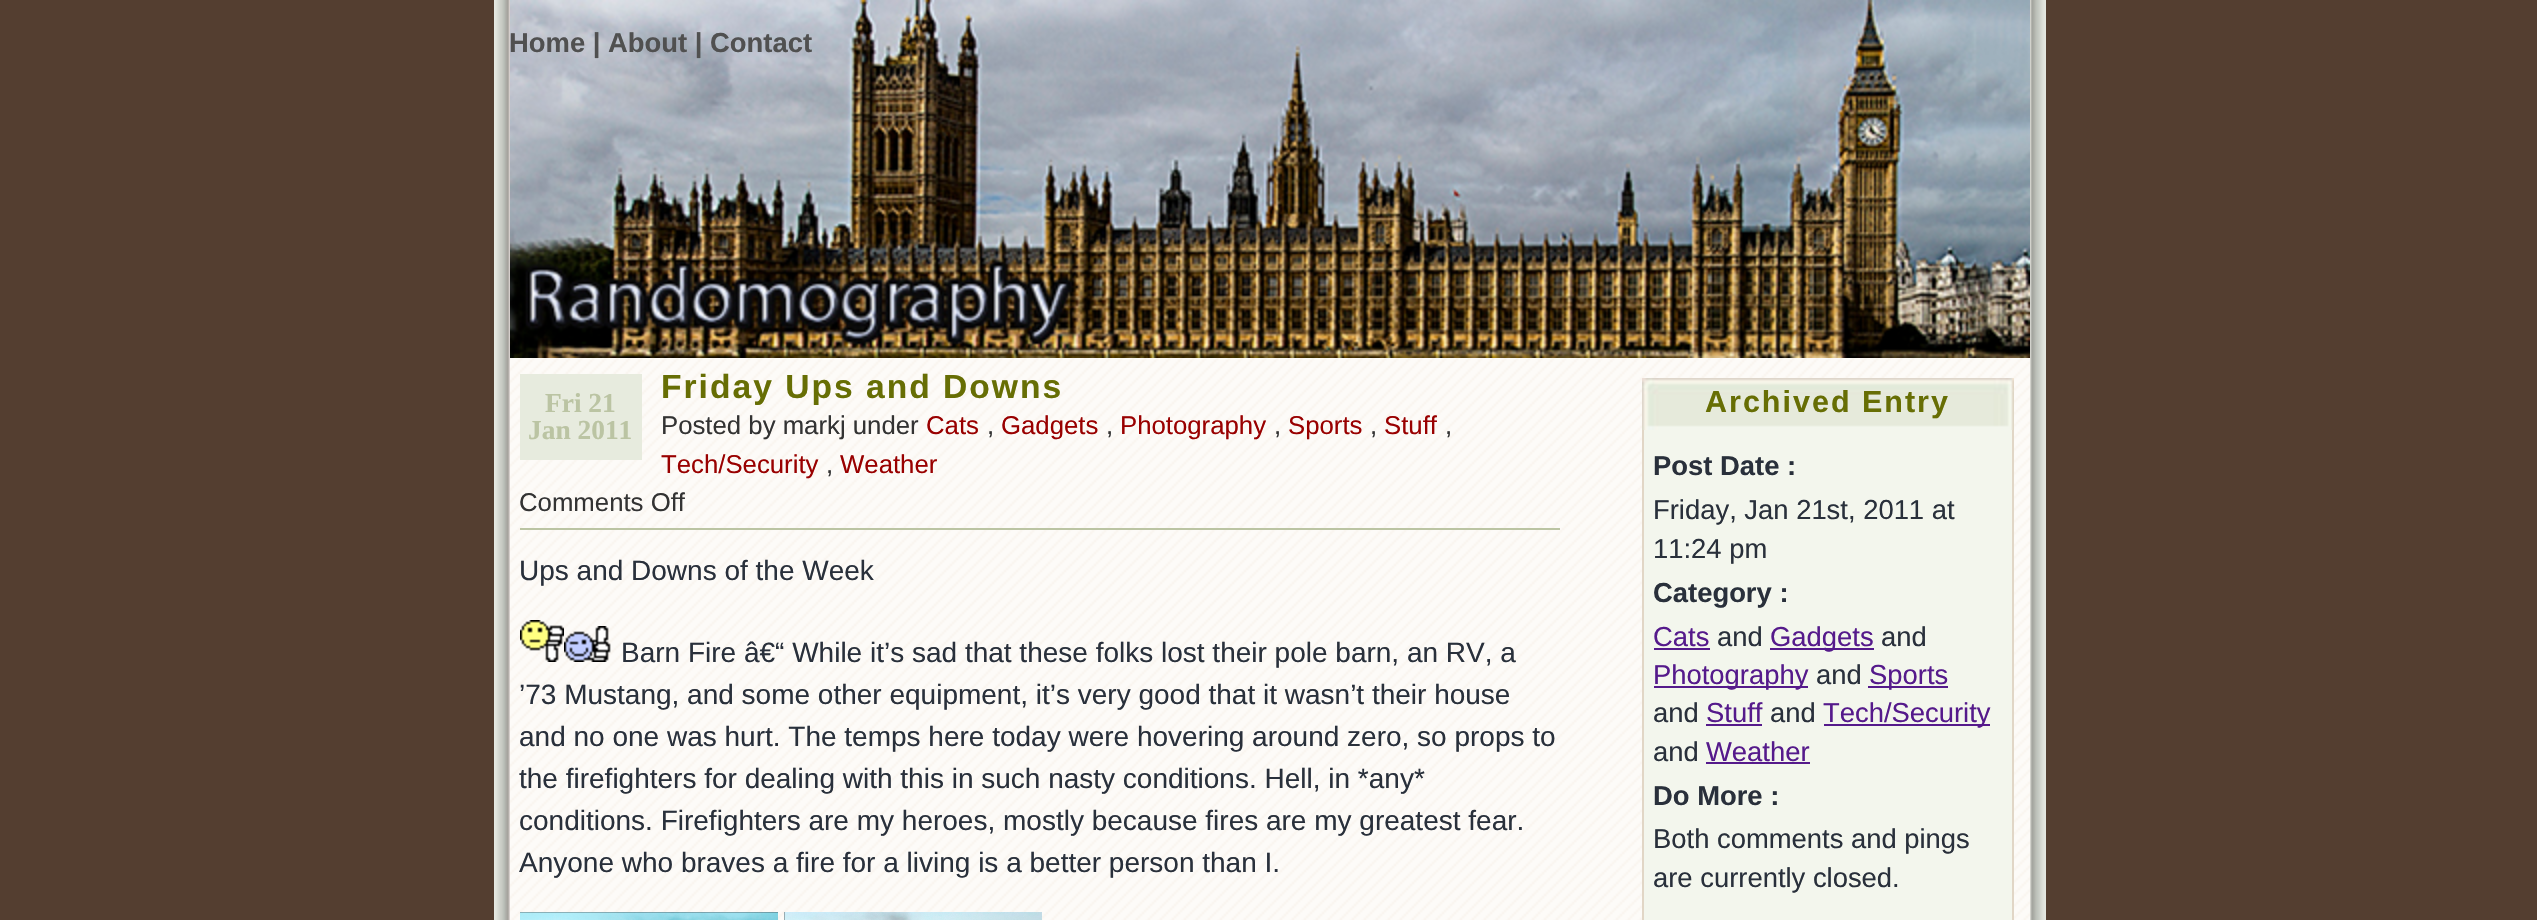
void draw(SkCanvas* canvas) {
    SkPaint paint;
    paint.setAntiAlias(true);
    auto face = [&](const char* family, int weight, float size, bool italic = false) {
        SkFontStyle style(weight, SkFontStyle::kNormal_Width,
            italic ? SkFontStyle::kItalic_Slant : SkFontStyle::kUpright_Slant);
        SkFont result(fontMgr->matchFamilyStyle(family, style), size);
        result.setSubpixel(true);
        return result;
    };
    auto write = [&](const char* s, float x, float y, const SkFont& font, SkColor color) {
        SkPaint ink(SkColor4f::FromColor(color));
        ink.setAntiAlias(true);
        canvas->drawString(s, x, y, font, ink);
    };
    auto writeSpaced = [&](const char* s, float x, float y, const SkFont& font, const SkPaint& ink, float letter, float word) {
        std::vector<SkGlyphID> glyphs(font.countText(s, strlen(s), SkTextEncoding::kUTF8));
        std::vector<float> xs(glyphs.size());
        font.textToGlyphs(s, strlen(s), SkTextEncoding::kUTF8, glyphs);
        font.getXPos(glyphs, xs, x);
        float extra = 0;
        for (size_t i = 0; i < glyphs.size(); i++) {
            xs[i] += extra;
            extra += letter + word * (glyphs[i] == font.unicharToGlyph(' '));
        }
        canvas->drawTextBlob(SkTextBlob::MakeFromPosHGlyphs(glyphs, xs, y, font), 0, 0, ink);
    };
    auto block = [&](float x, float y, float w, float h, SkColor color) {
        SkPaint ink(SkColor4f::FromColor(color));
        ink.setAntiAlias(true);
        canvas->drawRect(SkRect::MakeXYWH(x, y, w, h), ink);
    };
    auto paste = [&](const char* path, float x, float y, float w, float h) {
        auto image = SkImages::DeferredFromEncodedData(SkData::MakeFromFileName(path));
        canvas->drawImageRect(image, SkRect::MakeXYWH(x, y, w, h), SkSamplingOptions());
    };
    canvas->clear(SkColorSetRGB(84, 62, 48));
    paste("pic1.png", 494, 0, 1552, 920);
    paste("pic2.png", 510, 0, 1520, 358);
    auto kFont1 = face("Liberation Sans", 700, 27.4f);
    write("Home | About | Contact", 509, 52, kFont1, SkColorSetRGB(80, 80, 80));
    paste("pic3.png", 510, 358, 1520, 562);
    auto kFont2 = face("Liberation Sans", 700, 33.6f);
    paint.setColor(SkColorSetRGB(103, 110, 4));
    writeSpaced("Friday Ups and Downs", 661, 398, kFont2, paint, 2, 0);
    auto kFont3 = face("Liberation Sans", 400, 25.75f);
    write("Posted by markj under", 661, 434, kFont3, SkColorSetRGB(51, 51, 51));
    write("Cats", 926, 434, kFont3, SkColorSetRGB(153, 0, 0));
    write(",", 987, 434, kFont3, SkColorSetRGB(51, 51, 51));
    write("Gadgets", 1001, 434, kFont3, SkColorSetRGB(153, 0, 0));
    write(",", 1106, 434, kFont3, SkColorSetRGB(51, 51, 51));
    write("Photography", 1120, 434, kFont3, SkColorSetRGB(153, 0, 0));
    write(",", 1274, 434, kFont3, SkColorSetRGB(51, 51, 51));
    write("Sports", 1288, 434, kFont3, SkColorSetRGB(153, 0, 0));
    write(",", 1370, 434, kFont3, SkColorSetRGB(51, 51, 51));
    write("Stuff", 1384, 434, kFont3, SkColorSetRGB(153, 0, 0));
    write(",", 1445, 434, kFont3, SkColorSetRGB(51, 51, 51));
    write("Tech/Security", 661, 473, kFont3, SkColorSetRGB(153, 0, 0));
    write(",", 826, 473, kFont3, SkColorSetRGB(51, 51, 51));
    write("Weather", 840, 473, kFont3, SkColorSetRGB(153, 0, 0));
    write("Comments Off", 519, 511, kFont3, SkColorSetRGB(51, 51, 51));
    block(520, 374, 122, 86, SkColorSetRGB(231, 235, 222));
    auto kFont4 = face("Liberation Serif", 700, 27.4f);
    write("Fri 21", 545, 412, kFont4, SkColorSetRGB(187, 196, 163));
    write("Jan 2011", 528, 439, kFont4, SkColorSetRGB(187, 196, 163));
    block(520, 528, 1040, 2, SkColorSetRGB(187, 196, 163));
    auto kFont5 = face("Liberation Sans", 400, 28);
    write("Ups and Downs of the Week", 519, 580, kFont5, SkColorSetRGB(41, 48, 59));
    paste("pic4.png", 520, 620, 44, 42);
    paste("pic5.png", 564, 626, 47, 36);
    write("Barn Fire â€“ While it’s sad that these folks lost their pole barn, an RV, a", 621, 662, kFont5, SkColorSetRGB(41, 48, 59));
    write("’73 Mustang, and some other equipment, it’s very good that it wasn’t their house", 519, 704, kFont5, SkColorSetRGB(41, 48, 59));
    write("and no one was hurt. The temps here today were hovering around zero, so props to", 519, 746, kFont5, SkColorSetRGB(41, 48, 59));
    write("the firefighters for dealing with this in such nasty conditions. Hell, in *any*", 519, 788, kFont5, SkColorSetRGB(41, 48, 59));
    write("conditions. Firefighters are my heroes, mostly because fires are my greatest fear.", 519, 830, kFont5, SkColorSetRGB(41, 48, 59));
    write("Anyone who braves a fire for a living is a better person than I.", 519, 872, kFont5, SkColorSetRGB(41, 48, 59));
    paste("pic6.png", 520, 912, 258, 8);
    paste("pic7.png", 784, 912, 258, 8);
    paste("pic8.png", 1642, 378, 372, 52);
    auto kFont6 = face("Liberation Sans", 700, 30.5f);
    writeSpaced("Archived Entry", 1705, 412, kFont6, paint, 2, 0);
    block(1644, 430, 368, 490, SkColorSetRGB(243, 246, 237));
    block(2012, 430, 2, 490, SkColorSetRGB(225, 214, 198));
    block(1642, 430, 2, 490, SkColorSetRGB(225, 214, 198));
    write("Post Date :", 1653, 475, kFont1, SkColorSetRGB(41, 48, 59));
    auto kFont7 = face("Liberation Sans", 400, 27.4f);
    write("Friday, Jan 21st, 2011 at", 1653, 519, kFont7, SkColorSetRGB(41, 48, 59));
    write("11:24 pm", 1653, 558, kFont7, SkColorSetRGB(41, 48, 59));
    write("Category :", 1653, 602, kFont1, SkColorSetRGB(41, 48, 59));
    write("Cats", 1653, 646, kFont7, SkColorSetRGB(85, 26, 139));
    block(1654, 648, 56, 2, SkColorSetRGB(85, 26, 139));
    write("and", 1717, 646, kFont7, SkColorSetRGB(41, 48, 59));
    block(1770, 648, 104, 2, SkColorSetRGB(85, 26, 139));
    write("Gadgets", 1770, 646, kFont7, SkColorSetRGB(85, 26, 139));
    write("and", 1881, 646, kFont7, SkColorSetRGB(41, 48, 59));
    block(1654, 686, 154, 2, SkColorSetRGB(85, 26, 139));
    write("Photography", 1653, 684, kFont7, SkColorSetRGB(85, 26, 139));
    write("and", 1816, 684, kFont7, SkColorSetRGB(41, 48, 59));
    block(1868, 686, 80, 2, SkColorSetRGB(85, 26, 139));
    write("Sports", 1869, 684, kFont7, SkColorSetRGB(85, 26, 139));
    write("and", 1653, 722, kFont7, SkColorSetRGB(41, 48, 59));
    write("Stuff", 1706, 722, kFont7, SkColorSetRGB(85, 26, 139));
    block(1706, 724, 56, 2, SkColorSetRGB(85, 26, 139));
    write("and", 1770, 722, kFont7, SkColorSetRGB(41, 48, 59));
    block(1824, 724, 166, 2, SkColorSetRGB(85, 26, 139));
    write("Tech/Security", 1823, 722, kFont7, SkColorSetRGB(85, 26, 139));
    write("and", 1653, 761, kFont7, SkColorSetRGB(41, 48, 59));
    write("Weather", 1706, 761, kFont7, SkColorSetRGB(85, 26, 139));
    block(1706, 762, 104, 2, SkColorSetRGB(85, 26, 139));
    write("Do More :", 1653, 805, kFont1, SkColorSetRGB(41, 48, 59));
    write("Both comments and pings", 1653, 848, kFont7, SkColorSetRGB(41, 48, 59));
    write("are currently closed.", 1653, 887, kFont7, SkColorSetRGB(41, 48, 59));
}
